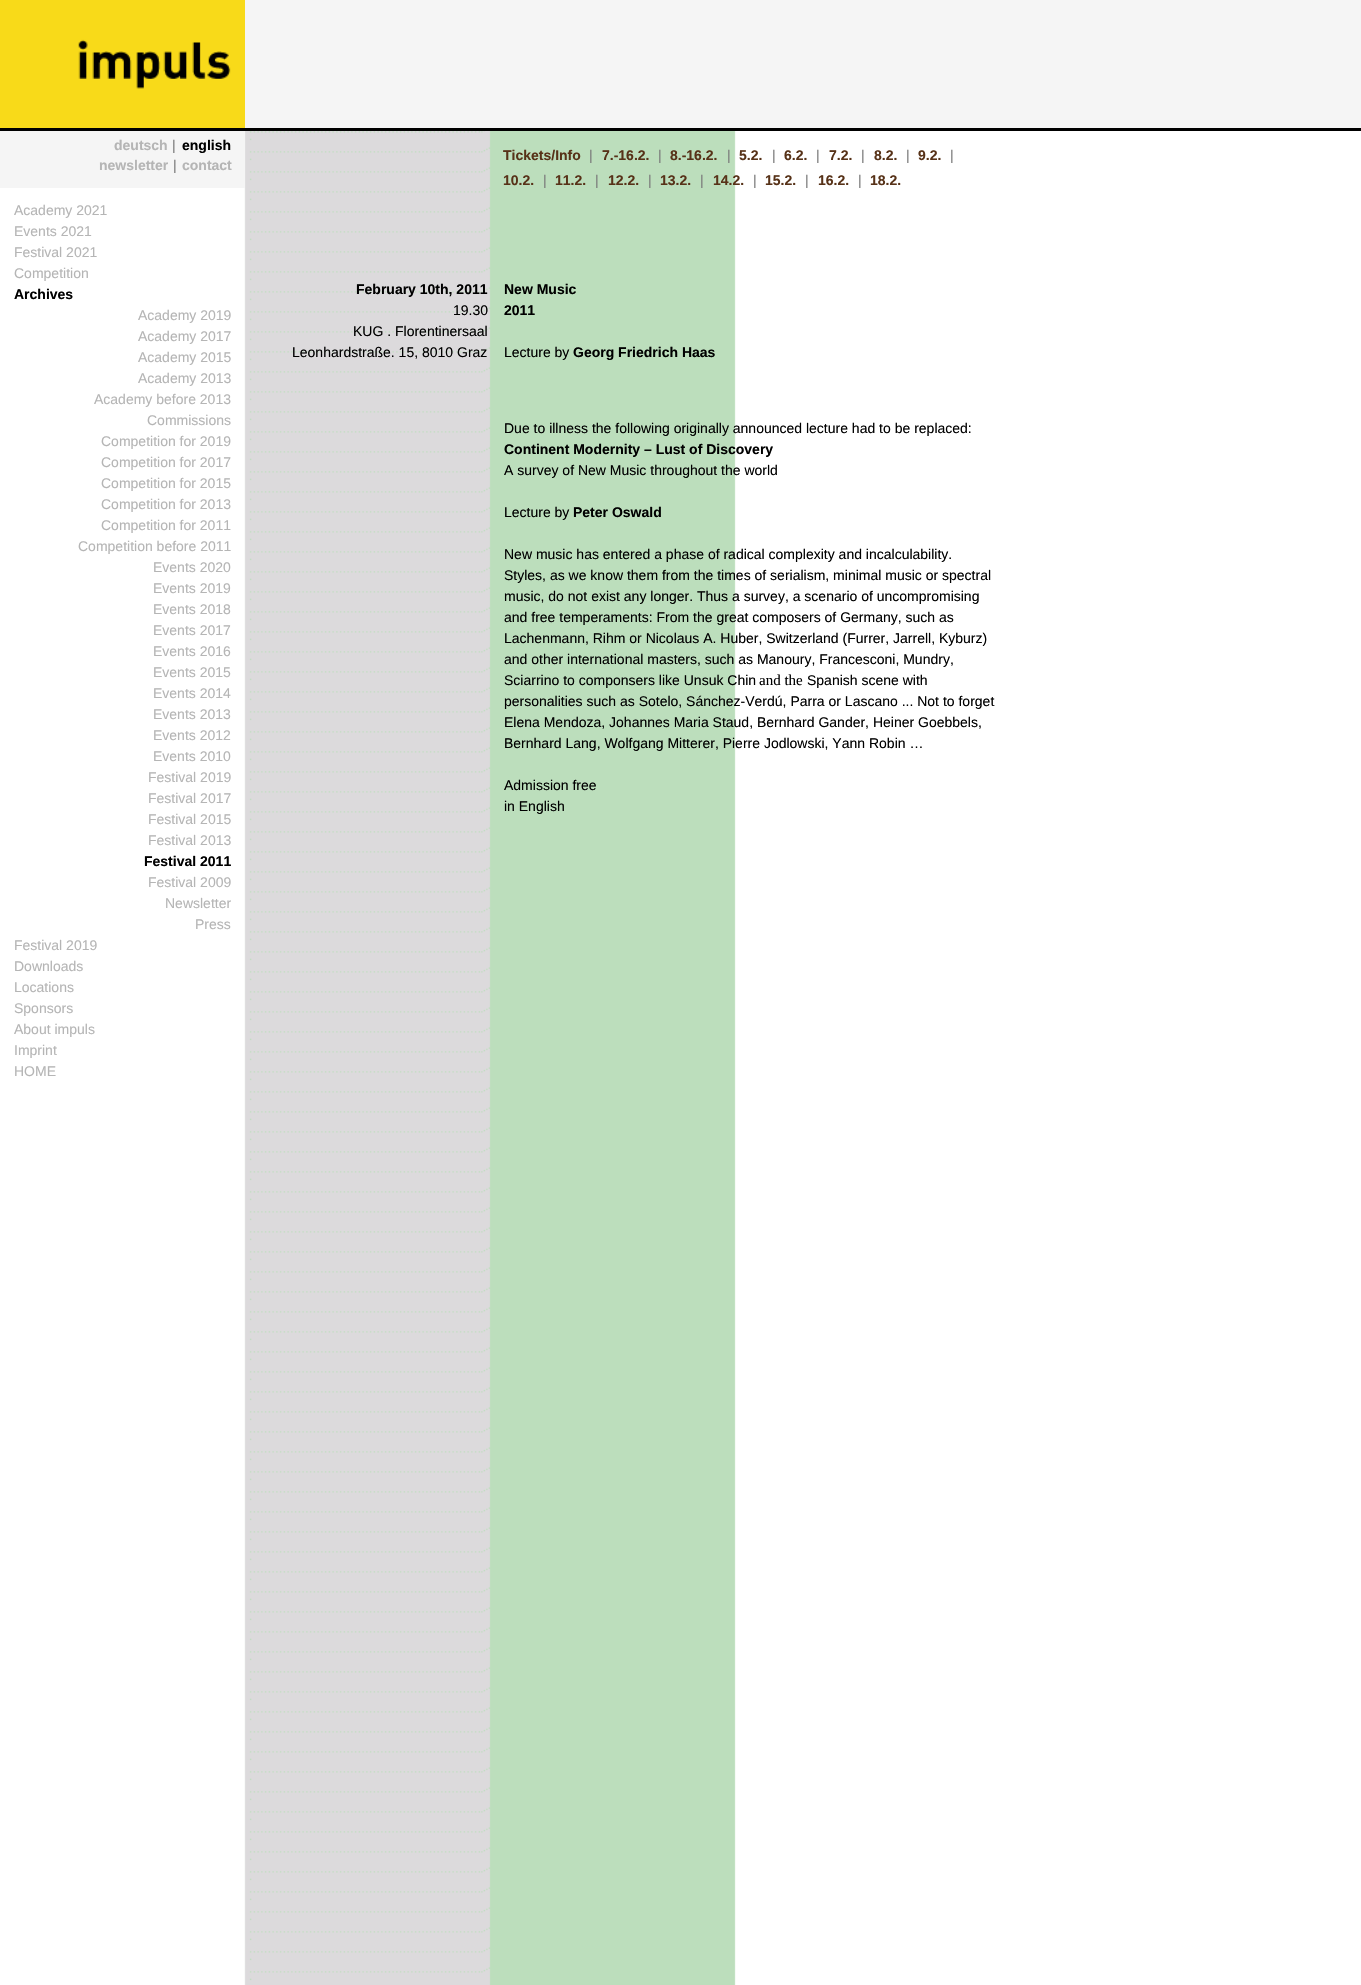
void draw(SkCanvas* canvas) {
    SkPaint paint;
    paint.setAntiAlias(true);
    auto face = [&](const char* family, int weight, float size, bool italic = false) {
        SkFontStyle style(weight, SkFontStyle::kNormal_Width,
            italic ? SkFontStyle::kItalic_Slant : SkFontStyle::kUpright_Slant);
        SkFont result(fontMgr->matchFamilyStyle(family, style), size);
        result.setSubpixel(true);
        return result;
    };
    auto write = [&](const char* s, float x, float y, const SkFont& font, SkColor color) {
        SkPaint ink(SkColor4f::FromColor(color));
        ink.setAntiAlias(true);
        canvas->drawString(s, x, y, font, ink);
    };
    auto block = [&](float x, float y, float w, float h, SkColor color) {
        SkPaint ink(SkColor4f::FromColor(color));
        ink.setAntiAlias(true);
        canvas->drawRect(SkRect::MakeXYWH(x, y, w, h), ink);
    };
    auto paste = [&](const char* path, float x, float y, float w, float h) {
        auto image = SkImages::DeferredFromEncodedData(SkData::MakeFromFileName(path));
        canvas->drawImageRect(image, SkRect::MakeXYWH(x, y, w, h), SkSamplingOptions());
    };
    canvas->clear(SK_ColorWHITE);
    paste("pic1.png", 244, 131, 492, 1854);
    block(245, 0, 1116, 128, SkColorSetRGB(245, 245, 245));
    block(0, 128, 1361, 3, SK_ColorBLACK);
    paste("pic2.png", 0, 0, 245, 128);
    block(0, 131, 245, 57, SkColorSetRGB(245, 245, 245));
    auto kFont1 = face("Liberation Sans", 700, 14);
    write("deutsch", 114, 150, kFont1, SkColorSetRGB(181, 181, 181));
    auto kFont2 = face("Liberation Sans", 400, 14);
    write("|", 172, 150, kFont2, SkColorSetRGB(123, 123, 123));
    write("english", 182, 150, kFont1, SK_ColorBLACK);
    write("newsletter", 99, 170, kFont1, SkColorSetRGB(181, 181, 181));
    write("|", 173, 170, kFont2, SkColorSetRGB(123, 123, 123));
    write("contact", 182, 170, kFont1, SkColorSetRGB(181, 181, 181));
    write("Academy 2021", 14, 215, kFont2, SkColorSetRGB(181, 181, 181));
    write("Events 2021", 14, 236, kFont2, SkColorSetRGB(181, 181, 181));
    write("Festival 2021", 14, 257, kFont2, SkColorSetRGB(181, 181, 181));
    write("Competition", 14, 278, kFont2, SkColorSetRGB(181, 181, 181));
    write("Archives", 14, 299, kFont1, SK_ColorBLACK);
    write("Academy 2019", 138, 320, kFont2, SkColorSetRGB(181, 181, 181));
    write("Academy 2017", 138, 341, kFont2, SkColorSetRGB(181, 181, 181));
    write("Academy 2015", 138, 362, kFont2, SkColorSetRGB(181, 181, 181));
    write("Academy 2013", 138, 383, kFont2, SkColorSetRGB(181, 181, 181));
    write("Academy before 2013", 94, 404, kFont2, SkColorSetRGB(181, 181, 181));
    write("Commissions", 147, 425, kFont2, SkColorSetRGB(181, 181, 181));
    write("Competition for 2019", 101, 446, kFont2, SkColorSetRGB(181, 181, 181));
    write("Competition for 2017", 101, 467, kFont2, SkColorSetRGB(181, 181, 181));
    write("Competition for 2015", 101, 488, kFont2, SkColorSetRGB(181, 181, 181));
    write("Competition for 2013", 101, 509, kFont2, SkColorSetRGB(181, 181, 181));
    write("Competition for 2011", 101, 530, kFont2, SkColorSetRGB(181, 181, 181));
    write("Competition before 2011", 78, 551, kFont2, SkColorSetRGB(181, 181, 181));
    write("Events 2020", 153, 572, kFont2, SkColorSetRGB(181, 181, 181));
    write("Events 2019", 153, 593, kFont2, SkColorSetRGB(181, 181, 181));
    write("Events 2018", 153, 614, kFont2, SkColorSetRGB(181, 181, 181));
    write("Events 2017", 153, 635, kFont2, SkColorSetRGB(181, 181, 181));
    write("Events 2016", 153, 656, kFont2, SkColorSetRGB(181, 181, 181));
    write("Events 2015", 153, 677, kFont2, SkColorSetRGB(181, 181, 181));
    write("Events 2014", 153, 698, kFont2, SkColorSetRGB(181, 181, 181));
    write("Events 2013", 153, 719, kFont2, SkColorSetRGB(181, 181, 181));
    write("Events 2012", 153, 740, kFont2, SkColorSetRGB(181, 181, 181));
    write("Events 2010", 153, 761, kFont2, SkColorSetRGB(181, 181, 181));
    write("Festival 2019", 148, 782, kFont2, SkColorSetRGB(181, 181, 181));
    write("Festival 2017", 148, 803, kFont2, SkColorSetRGB(181, 181, 181));
    write("Festival 2015", 148, 824, kFont2, SkColorSetRGB(181, 181, 181));
    write("Festival 2013", 148, 845, kFont2, SkColorSetRGB(181, 181, 181));
    write("Festival 2011", 144, 866, kFont1, SK_ColorBLACK);
    write("Festival 2009", 148, 887, kFont2, SkColorSetRGB(181, 181, 181));
    write("Newsletter", 165, 908, kFont2, SkColorSetRGB(181, 181, 181));
    write("Press", 195, 929, kFont2, SkColorSetRGB(181, 181, 181));
    write("Festival 2019", 14, 950, kFont2, SkColorSetRGB(181, 181, 181));
    write("Downloads", 14, 971, kFont2, SkColorSetRGB(181, 181, 181));
    write("Locations", 14, 992, kFont2, SkColorSetRGB(181, 181, 181));
    write("Sponsors", 14, 1013, kFont2, SkColorSetRGB(181, 181, 181));
    write("About impuls", 14, 1034, kFont2, SkColorSetRGB(181, 181, 181));
    write("Imprint", 14, 1055, kFont2, SkColorSetRGB(181, 181, 181));
    write("HOME", 14, 1076, kFont2, SkColorSetRGB(181, 181, 181));
    write("Tickets/Info", 503, 160, kFont1, SkColorSetRGB(87, 50, 24));
    write("|", 589, 160, kFont2, SkColorSetRGB(123, 123, 123));
    write("7.-16.2.", 602, 160, kFont1, SkColorSetRGB(87, 50, 24));
    write("|", 658, 160, kFont2, SkColorSetRGB(123, 123, 123));
    write("8.-16.2.", 670, 160, kFont1, SkColorSetRGB(87, 50, 24));
    write("|", 727, 160, kFont2, SkColorSetRGB(123, 123, 123));
    write("5.2.", 739, 160, kFont1, SkColorSetRGB(87, 50, 24));
    write("|", 772, 160, kFont2, SkColorSetRGB(123, 123, 123));
    write("6.2.", 784, 160, kFont1, SkColorSetRGB(87, 50, 24));
    write("|", 816, 160, kFont2, SkColorSetRGB(123, 123, 123));
    write("7.2.", 829, 160, kFont1, SkColorSetRGB(87, 50, 24));
    write("|", 861, 160, kFont2, SkColorSetRGB(123, 123, 123));
    write("8.2.", 874, 160, kFont1, SkColorSetRGB(87, 50, 24));
    write("|", 906, 160, kFont2, SkColorSetRGB(123, 123, 123));
    write("9.2.", 918, 160, kFont1, SkColorSetRGB(87, 50, 24));
    write("|", 950, 160, kFont2, SkColorSetRGB(123, 123, 123));
    write("10.2.", 503, 185, kFont1, SkColorSetRGB(87, 50, 24));
    write("|", 543, 185, kFont2, SkColorSetRGB(123, 123, 123));
    write("11.2.", 555, 185, kFont1, SkColorSetRGB(87, 50, 24));
    write("|", 595, 185, kFont2, SkColorSetRGB(123, 123, 123));
    write("12.2.", 608, 185, kFont1, SkColorSetRGB(87, 50, 24));
    write("|", 648, 185, kFont2, SkColorSetRGB(123, 123, 123));
    write("13.2.", 660, 185, kFont1, SkColorSetRGB(87, 50, 24));
    write("|", 700, 185, kFont2, SkColorSetRGB(123, 123, 123));
    write("14.2.", 713, 185, kFont1, SkColorSetRGB(87, 50, 24));
    write("|", 753, 185, kFont2, SkColorSetRGB(123, 123, 123));
    write("15.2.", 765, 185, kFont1, SkColorSetRGB(87, 50, 24));
    write("|", 805, 185, kFont2, SkColorSetRGB(123, 123, 123));
    write("16.2.", 818, 185, kFont1, SkColorSetRGB(87, 50, 24));
    write("|", 858, 185, kFont2, SkColorSetRGB(123, 123, 123));
    write("18.2.", 870, 185, kFont1, SkColorSetRGB(87, 50, 24));
    write("February 10th, 2011", 356, 294, kFont1, SK_ColorBLACK);
    write("19.30", 453, 315, kFont2, SK_ColorBLACK);
    write("KUG . Florentinersaal", 353, 336, kFont2, SK_ColorBLACK);
    write("Leonhardstraße. 15, 8010 Graz", 292, 357, kFont2, SK_ColorBLACK);
    write("New Music", 504, 294, kFont1, SK_ColorBLACK);
    write("2011", 504, 315, kFont1, SK_ColorBLACK);
    write("Lecture by", 504, 357, kFont2, SK_ColorBLACK);
    write("Georg Friedrich Haas", 573, 357, kFont1, SK_ColorBLACK);
    write("Due to illness the following originally announced lecture had to be replaced:", 504, 433, kFont2, SK_ColorBLACK);
    write("Continent Modernity – Lust of Discovery", 504, 454, kFont1, SK_ColorBLACK);
    write("A survey of New Music throughout the world", 504, 475, kFont2, SK_ColorBLACK);
    write("Lecture by", 504, 517, kFont2, SK_ColorBLACK);
    write("Peter Oswald", 573, 517, kFont1, SK_ColorBLACK);
    write("New music has entered a phase of radical complexity and incalculability.", 504, 559, kFont2, SK_ColorBLACK);
    write("Styles, as we know them from the times of serialism, minimal music or spectral", 504, 580, kFont2, SK_ColorBLACK);
    write("music, do not exist any longer. Thus a survey, a scenario of uncompromising", 504, 601, kFont2, SK_ColorBLACK);
    write("and free temperaments: From the great composers of Germany, such as", 504, 622, kFont2, SK_ColorBLACK);
    write("Lachenmann, Rihm or Nicolaus A. Huber, Switzerland (Furrer, Jarrell, Kyburz)", 504, 643, kFont2, SK_ColorBLACK);
    write("and other international masters, such as Manoury, Francesconi, Mundry,", 504, 664, kFont2, SK_ColorBLACK);
    write("Sciarrino to componsers like Unsuk Chin", 504, 685, kFont2, SK_ColorBLACK);
    auto kFont3 = face("Liberation Serif", 400, 15);
    write("and the", 759, 685, kFont3, SK_ColorBLACK);
    write("Spanish scene with", 807, 685, kFont2, SK_ColorBLACK);
    write("personalities such as Sotelo, Sánchez-Verdú, Parra or Lascano ... Not to forget", 504, 706, kFont2, SK_ColorBLACK);
    write("Elena Mendoza, Johannes Maria Staud, Bernhard Gander, Heiner Goebbels,", 504, 727, kFont2, SK_ColorBLACK);
    write("Bernhard Lang, Wolfgang Mitterer, Pierre Jodlowski, Yann Robin …", 504, 748, kFont2, SK_ColorBLACK);
    write("Admission free", 504, 790, kFont2, SK_ColorBLACK);
    write("in English", 504, 811, kFont2, SK_ColorBLACK);
}
